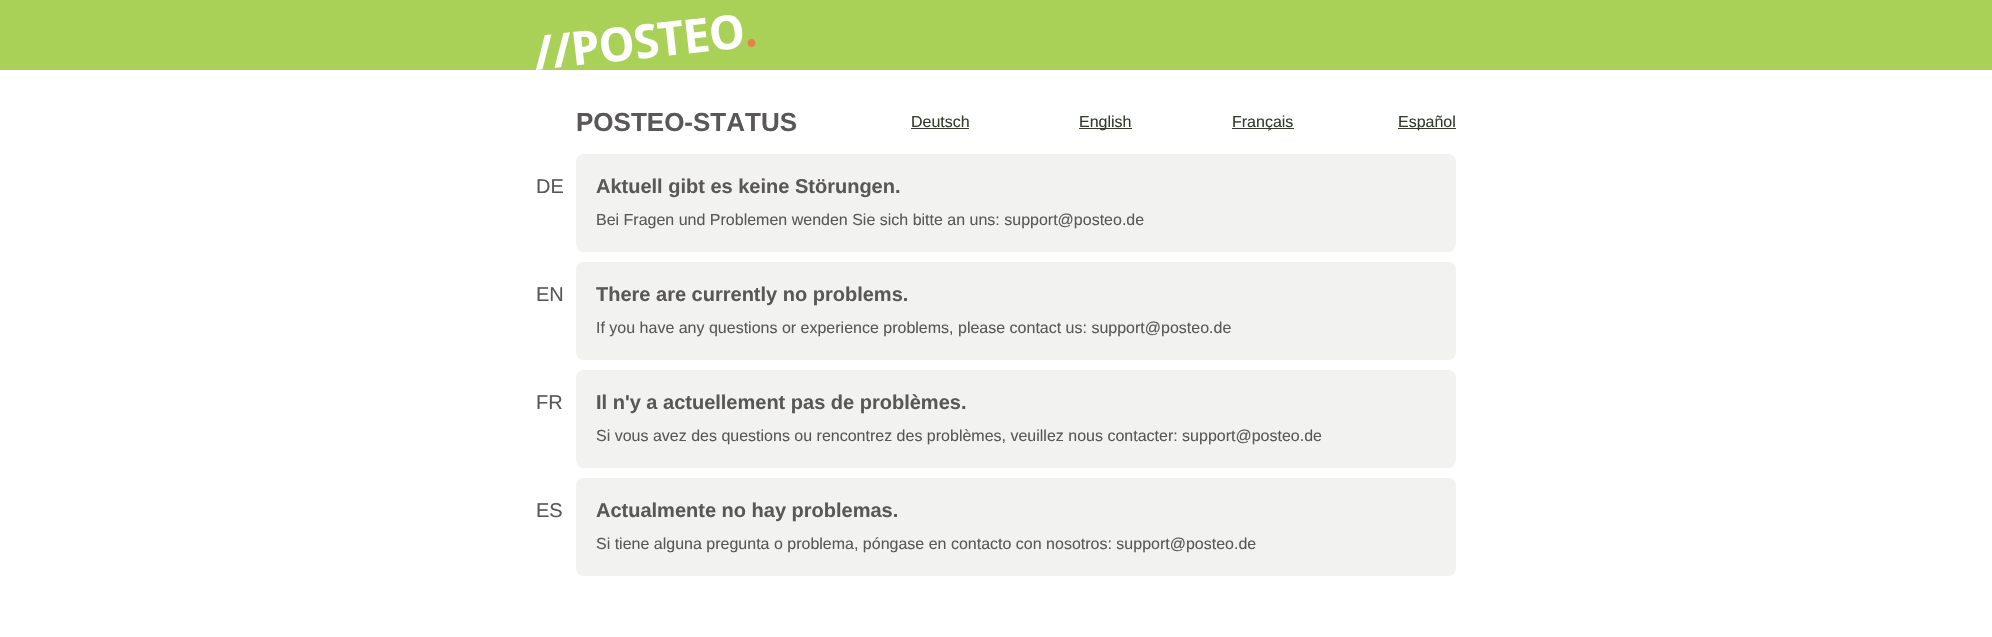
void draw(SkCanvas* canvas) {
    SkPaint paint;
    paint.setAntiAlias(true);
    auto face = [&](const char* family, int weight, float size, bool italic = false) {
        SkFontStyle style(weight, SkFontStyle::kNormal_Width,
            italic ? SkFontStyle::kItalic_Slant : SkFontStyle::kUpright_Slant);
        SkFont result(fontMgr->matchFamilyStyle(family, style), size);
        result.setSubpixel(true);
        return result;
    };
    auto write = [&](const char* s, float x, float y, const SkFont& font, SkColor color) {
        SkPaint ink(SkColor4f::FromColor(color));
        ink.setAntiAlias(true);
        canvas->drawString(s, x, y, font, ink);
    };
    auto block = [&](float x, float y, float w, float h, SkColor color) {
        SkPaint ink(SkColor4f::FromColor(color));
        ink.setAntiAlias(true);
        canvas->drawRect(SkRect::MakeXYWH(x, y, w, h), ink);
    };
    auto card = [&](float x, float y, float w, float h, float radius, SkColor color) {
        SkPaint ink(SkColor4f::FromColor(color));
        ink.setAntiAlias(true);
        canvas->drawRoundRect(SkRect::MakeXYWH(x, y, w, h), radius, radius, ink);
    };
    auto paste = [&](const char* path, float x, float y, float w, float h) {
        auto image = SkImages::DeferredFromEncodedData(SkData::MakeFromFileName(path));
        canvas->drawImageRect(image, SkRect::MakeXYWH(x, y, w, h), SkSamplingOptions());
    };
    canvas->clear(SK_ColorWHITE);
    block(0, 0, 1992, 70, SkColorSetRGB(169, 209, 88));
    paste("pic1.png", 536, 15, 220, 55);
    auto kFont1 = face("Liberation Sans", 700, 26);
    write("POSTEO-STATUS", 576, 131, kFont1, SkColorSetRGB(89, 87, 87));
    auto kFont2 = face("Liberation Sans", 400, 16);
    write("Deutsch", 911, 127, kFont2, SkColorSetRGB(51, 59, 42));
    block(911, 128, 58, 1, SkColorSetRGB(51, 59, 42));
    block(1079, 128, 53, 1, SkColorSetRGB(51, 59, 42));
    write("English", 1079, 127, kFont2, SkColorSetRGB(51, 59, 42));
    block(1232, 128, 62, 1, SkColorSetRGB(51, 59, 42));
    write("Français", 1232, 127, kFont2, SkColorSetRGB(51, 59, 42));
    block(1398, 128, 58, 1, SkColorSetRGB(51, 59, 42));
    write("Español", 1398, 127, kFont2, SkColorSetRGB(51, 59, 42));
    auto kFont3 = face("Liberation Sans", 400, 20);
    write("DE", 536, 193, kFont3, SkColorSetRGB(89, 87, 87));
    card(576, 154, 880, 98, 8, SkColorSetRGB(242, 242, 241));
    auto kFont4 = face("Liberation Sans", 700, 20);
    write("Aktuell gibt es keine Störungen.", 596, 193, kFont4, SkColorSetRGB(89, 87, 87));
    write("Bei Fragen und Problemen wenden Sie sich bitte an uns: support@posteo.de", 596, 225, kFont2, SkColorSetRGB(89, 87, 87));
    write("EN", 536, 301, kFont3, SkColorSetRGB(89, 87, 87));
    card(576, 262, 880, 98, 8, SkColorSetRGB(242, 242, 241));
    write("There are currently no problems.", 596, 301, kFont4, SkColorSetRGB(89, 87, 87));
    write("If you have any questions or experience problems, please contact us: support@posteo.de", 596, 333, kFont2, SkColorSetRGB(89, 87, 87));
    write("FR", 536, 409, kFont3, SkColorSetRGB(89, 87, 87));
    card(576, 370, 880, 98, 8, SkColorSetRGB(242, 242, 241));
    write("Il n'y a actuellement pas de problèmes.", 596, 409, kFont4, SkColorSetRGB(89, 87, 87));
    write("Si vous avez des questions ou rencontrez des problèmes, veuillez nous contacter: support@posteo.de", 596, 441, kFont2, SkColorSetRGB(89, 87, 87));
    write("ES", 536, 517, kFont3, SkColorSetRGB(89, 87, 87));
    card(576, 478, 880, 98, 8, SkColorSetRGB(242, 242, 241));
    write("Actualmente no hay problemas.", 596, 517, kFont4, SkColorSetRGB(89, 87, 87));
    write("Si tiene alguna pregunta o problema, póngase en contacto con nosotros: support@posteo.de", 596, 549, kFont2, SkColorSetRGB(89, 87, 87));
}
